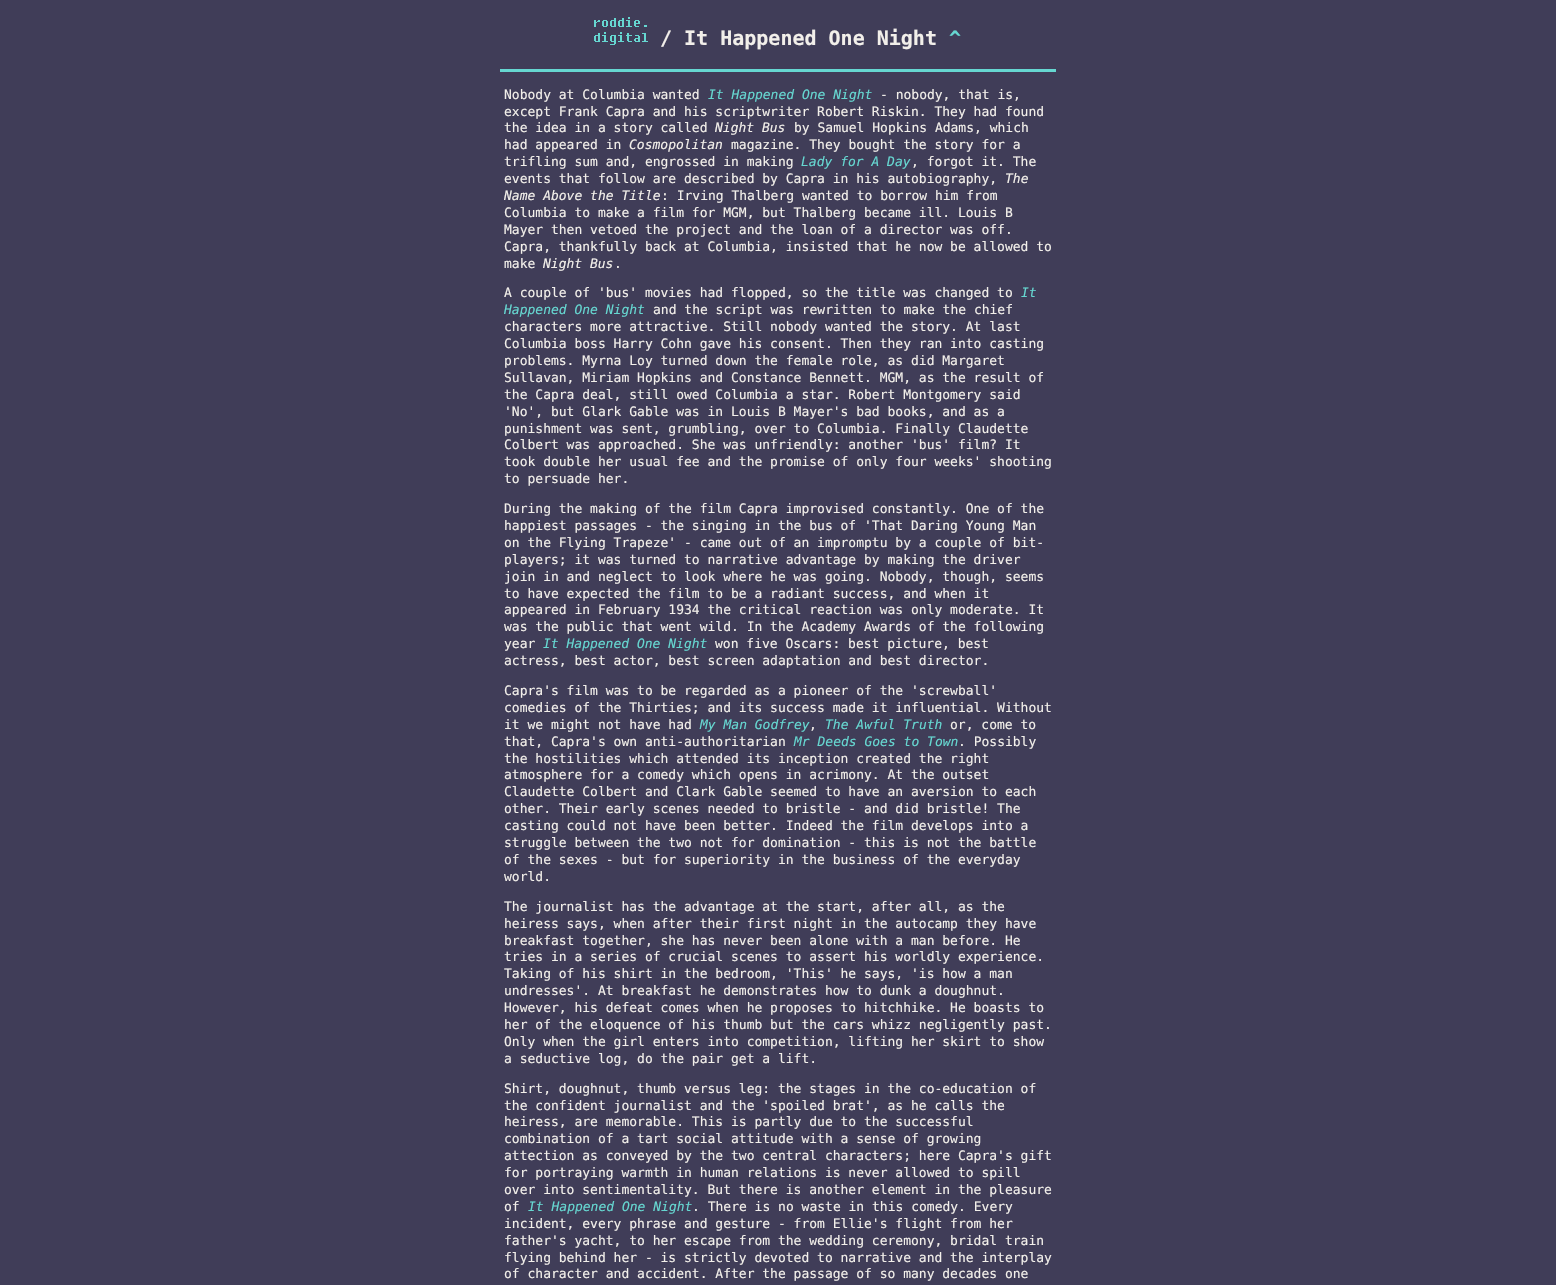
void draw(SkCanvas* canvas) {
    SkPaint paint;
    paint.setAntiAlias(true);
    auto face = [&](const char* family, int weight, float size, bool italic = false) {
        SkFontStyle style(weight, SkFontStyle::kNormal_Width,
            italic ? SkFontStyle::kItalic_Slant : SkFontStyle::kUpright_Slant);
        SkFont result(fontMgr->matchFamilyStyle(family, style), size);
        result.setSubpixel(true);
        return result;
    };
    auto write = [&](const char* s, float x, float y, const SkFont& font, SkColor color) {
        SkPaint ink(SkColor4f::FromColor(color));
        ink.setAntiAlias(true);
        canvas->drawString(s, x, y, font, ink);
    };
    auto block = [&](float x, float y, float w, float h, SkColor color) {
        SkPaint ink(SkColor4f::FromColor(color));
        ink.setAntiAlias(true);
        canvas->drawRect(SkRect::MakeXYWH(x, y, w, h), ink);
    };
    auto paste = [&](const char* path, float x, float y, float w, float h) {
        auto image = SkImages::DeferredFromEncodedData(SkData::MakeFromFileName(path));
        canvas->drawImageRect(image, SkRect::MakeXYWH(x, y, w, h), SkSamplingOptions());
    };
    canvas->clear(SkColorSetRGB(64, 61, 88));
    block(500, 69, 556, 3, SkColorSetRGB(102, 215, 209));
    paste("pic1.png", 594, 17, 54, 28);
    auto kFont1 = face("DejaVu Sans Mono", 700, 20);
    write("/ It Happened One Night", 660, 45, kFont1, SkColorSetRGB(242, 239, 234));
    write("^", 949, 45, kFont1, SkColorSetRGB(102, 215, 209));
    auto kFont2 = face("DejaVu Sans Mono", 400, 13);
    write("Nobody at Columbia wanted", 504, 99, kFont2, SkColorSetRGB(242, 239, 234));
    auto kFont3 = face("DejaVu Sans Mono", 400, 13, true);
    write("It Happened One Night", 708, 99, kFont3, SkColorSetRGB(102, 215, 209));
    write("- nobody, that is,", 880, 99, kFont2, SkColorSetRGB(242, 239, 234));
    write("except Frank Capra and his scriptwriter Robert Riskin. They had found", 504, 116, kFont2, SkColorSetRGB(242, 239, 234));
    write("the idea in a story called", 504, 132, kFont2, SkColorSetRGB(242, 239, 234));
    write("Night Bus", 715, 132, kFont3, SkColorSetRGB(242, 239, 234));
    write("by Samuel Hopkins Adams, which", 794, 132, kFont2, SkColorSetRGB(242, 239, 234));
    write("had appeared in", 504, 149, kFont2, SkColorSetRGB(242, 239, 234));
    write("Cosmopolitan", 629, 149, kFont3, SkColorSetRGB(242, 239, 234));
    write("magazine. They bought the story for a", 731, 149, kFont2, SkColorSetRGB(242, 239, 234));
    write("trifling sum and, engrossed in making", 504, 166, kFont2, SkColorSetRGB(242, 239, 234));
    write("Lady for A Day", 801, 166, kFont3, SkColorSetRGB(102, 215, 209));
    write(", forgot it. The", 911, 166, kFont2, SkColorSetRGB(242, 239, 234));
    write("events that follow are described by Capra in his autobiography,", 504, 183, kFont2, SkColorSetRGB(242, 239, 234));
    write("The", 1005, 183, kFont3, SkColorSetRGB(242, 239, 234));
    write("Name Above the Title", 504, 200, kFont3, SkColorSetRGB(242, 239, 234));
    write(": Irving Thalberg wanted to borrow him from", 661, 200, kFont2, SkColorSetRGB(242, 239, 234));
    write("Columbia to make a film for MGM, but Thalberg became ill. Louis B", 504, 217, kFont2, SkColorSetRGB(242, 239, 234));
    write("Mayer then vetoed the project and the loan of a director was off.", 504, 234, kFont2, SkColorSetRGB(242, 239, 234));
    write("Capra, thankfully back at Columbia, insisted that he now be allowed to", 504, 251, kFont2, SkColorSetRGB(242, 239, 234));
    write("make", 504, 268, kFont2, SkColorSetRGB(242, 239, 234));
    write("Night Bus", 543, 268, kFont3, SkColorSetRGB(242, 239, 234));
    write(".", 614, 268, kFont2, SkColorSetRGB(242, 239, 234));
    write("A couple of 'bus' movies had flopped, so the title was changed to", 504, 297, kFont2, SkColorSetRGB(242, 239, 234));
    write("It", 1021, 297, kFont3, SkColorSetRGB(102, 215, 209));
    write("Happened One Night", 504, 314, kFont3, SkColorSetRGB(102, 215, 209));
    write("and the script was rewritten to make the chief", 653, 314, kFont2, SkColorSetRGB(242, 239, 234));
    write("characters more attractive. Still nobody wanted the story. At last", 504, 331, kFont2, SkColorSetRGB(242, 239, 234));
    write("Columbia boss Harry Cohn gave his consent. Then they ran into casting", 504, 348, kFont2, SkColorSetRGB(242, 239, 234));
    write("problems. Myrna Loy turned down the female role, as did Margaret", 504, 365, kFont2, SkColorSetRGB(242, 239, 234));
    write("Sullavan, Miriam Hopkins and Constance Bennett. MGM, as the result of", 504, 382, kFont2, SkColorSetRGB(242, 239, 234));
    write("the Capra deal, still owed Columbia a star. Robert Montgomery said", 504, 399, kFont2, SkColorSetRGB(242, 239, 234));
    write("'No', but Glark Gable was in Louis B Mayer's bad books, and as a", 504, 416, kFont2, SkColorSetRGB(242, 239, 234));
    write("punishment was sent, grumbling, over to Columbia. Finally Claudette", 504, 433, kFont2, SkColorSetRGB(242, 239, 234));
    write("Colbert was approached. She was unfriendly: another 'bus' film? It", 504, 449, kFont2, SkColorSetRGB(242, 239, 234));
    write("took double her usual fee and the promise of only four weeks' shooting", 504, 466, kFont2, SkColorSetRGB(242, 239, 234));
    write("to persuade her.", 504, 483, kFont2, SkColorSetRGB(242, 239, 234));
    write("During the making of the film Capra improvised constantly. One of the", 504, 513, kFont2, SkColorSetRGB(242, 239, 234));
    write("happiest passages - the singing in the bus of 'That Daring Young Man", 504, 530, kFont2, SkColorSetRGB(242, 239, 234));
    write("on the Flying Trapeze' - came out of an impromptu by a couple of bit-", 504, 547, kFont2, SkColorSetRGB(242, 239, 234));
    write("players; it was turned to narrative advantage by making the driver", 504, 564, kFont2, SkColorSetRGB(242, 239, 234));
    write("join in and neglect to look where he was going. Nobody, though, seems", 504, 581, kFont2, SkColorSetRGB(242, 239, 234));
    write("to have expected the film to be a radiant success, and when it", 504, 598, kFont2, SkColorSetRGB(242, 239, 234));
    write("appeared in February 1934 the critical reaction was only moderate. It", 504, 614, kFont2, SkColorSetRGB(242, 239, 234));
    write("was the public that went wild. In the Academy Awards of the following", 504, 631, kFont2, SkColorSetRGB(242, 239, 234));
    write("year", 504, 648, kFont2, SkColorSetRGB(242, 239, 234));
    write("It Happened One Night", 543, 648, kFont3, SkColorSetRGB(102, 215, 209));
    write("won five Oscars: best picture, best", 715, 648, kFont2, SkColorSetRGB(242, 239, 234));
    write("actress, best actor, best screen adaptation and best director.", 504, 665, kFont2, SkColorSetRGB(242, 239, 234));
    write("Capra's film was to be regarded as a pioneer of the 'screwball'", 504, 695, kFont2, SkColorSetRGB(242, 239, 234));
    write("comedies of the Thirties; and its success made it influential. Without", 504, 712, kFont2, SkColorSetRGB(242, 239, 234));
    write("it we might not have had", 504, 729, kFont2, SkColorSetRGB(242, 239, 234));
    write("My Man Godfrey", 700, 729, kFont3, SkColorSetRGB(102, 215, 209));
    write(",", 809, 729, kFont2, SkColorSetRGB(242, 239, 234));
    write("The Awful Truth", 825, 729, kFont3, SkColorSetRGB(102, 215, 209));
    write("or, come to", 950, 729, kFont2, SkColorSetRGB(242, 239, 234));
    write("that, Capra's own anti-authoritarian", 504, 746, kFont2, SkColorSetRGB(242, 239, 234));
    write("Mr Deeds Goes to Town", 794, 746, kFont3, SkColorSetRGB(102, 215, 209));
    write(". Possibly", 958, 746, kFont2, SkColorSetRGB(242, 239, 234));
    write("the hostilities which attended its inception created the right", 504, 763, kFont2, SkColorSetRGB(242, 239, 234));
    write("atmosphere for a comedy which opens in acrimony. At the outset", 504, 779, kFont2, SkColorSetRGB(242, 239, 234));
    write("Claudette Colbert and Clark Gable seemed to have an aversion to each", 504, 796, kFont2, SkColorSetRGB(242, 239, 234));
    write("other. Their early scenes needed to bristle - and did bristle! The", 504, 813, kFont2, SkColorSetRGB(242, 239, 234));
    write("casting could not have been better. Indeed the film develops into a", 504, 830, kFont2, SkColorSetRGB(242, 239, 234));
    write("struggle between the two not for domination - this is not the battle", 504, 847, kFont2, SkColorSetRGB(242, 239, 234));
    write("of the sexes - but for superiority in the business of the everyday", 504, 864, kFont2, SkColorSetRGB(242, 239, 234));
    write("world.", 504, 881, kFont2, SkColorSetRGB(242, 239, 234));
    write("The journalist has the advantage at the start, after all, as the", 504, 911, kFont2, SkColorSetRGB(242, 239, 234));
    write("heiress says, when after their first night in the autocamp they have", 504, 928, kFont2, SkColorSetRGB(242, 239, 234));
    write("breakfast together, she has never been alone with a man before. He", 504, 945, kFont2, SkColorSetRGB(242, 239, 234));
    write("tries in a series of crucial scenes to assert his worldly experience.", 504, 961, kFont2, SkColorSetRGB(242, 239, 234));
    write("Taking of his shirt in the bedroom, 'This' he says, 'is how a man", 504, 978, kFont2, SkColorSetRGB(242, 239, 234));
    write("undresses'. At breakfast he demonstrates how to dunk a doughnut.", 504, 995, kFont2, SkColorSetRGB(242, 239, 234));
    write("However, his defeat comes when he proposes to hitchhike. He boasts to", 504, 1012, kFont2, SkColorSetRGB(242, 239, 234));
    write("her of the eloquence of his thumb but the cars whizz negligently past.", 504, 1029, kFont2, SkColorSetRGB(242, 239, 234));
    write("Only when the girl enters into competition, lifting her skirt to show", 504, 1046, kFont2, SkColorSetRGB(242, 239, 234));
    write("a seductive log, do the pair get a lift.", 504, 1063, kFont2, SkColorSetRGB(242, 239, 234));
    write("Shirt, doughnut, thumb versus leg: the stages in the co-education of", 504, 1093, kFont2, SkColorSetRGB(242, 239, 234));
    write("the confident journalist and the 'spoiled brat', as he calls the", 504, 1110, kFont2, SkColorSetRGB(242, 239, 234));
    write("heiress, are memorable. This is partly due to the successful", 504, 1126, kFont2, SkColorSetRGB(242, 239, 234));
    write("combination of a tart social attitude with a sense of growing", 504, 1143, kFont2, SkColorSetRGB(242, 239, 234));
    write("attection as conveyed by the two central characters; here Capra's gift", 504, 1160, kFont2, SkColorSetRGB(242, 239, 234));
    write("for portraying warmth in human relations is never allowed to spill", 504, 1177, kFont2, SkColorSetRGB(242, 239, 234));
    write("over into sentimentality. But there is another element in the pleasure", 504, 1194, kFont2, SkColorSetRGB(242, 239, 234));
    write("of", 504, 1211, kFont2, SkColorSetRGB(242, 239, 234));
    write("It Happened One Night", 528, 1211, kFont3, SkColorSetRGB(102, 215, 209));
    write(". There is no waste in this comedy. Every", 692, 1211, kFont2, SkColorSetRGB(242, 239, 234));
    write("incident, every phrase and gesture - from Ellie's flight from her", 504, 1228, kFont2, SkColorSetRGB(242, 239, 234));
    write("father's yacht, to her escape from the wedding ceremony, bridal train", 504, 1245, kFont2, SkColorSetRGB(242, 239, 234));
    write("flying behind her - is strictly devoted to narrative and the interplay", 504, 1262, kFont2, SkColorSetRGB(242, 239, 234));
    write("of character and accident. After the passage of so many decades one", 504, 1278, kFont2, SkColorSetRGB(242, 239, 234));
}
